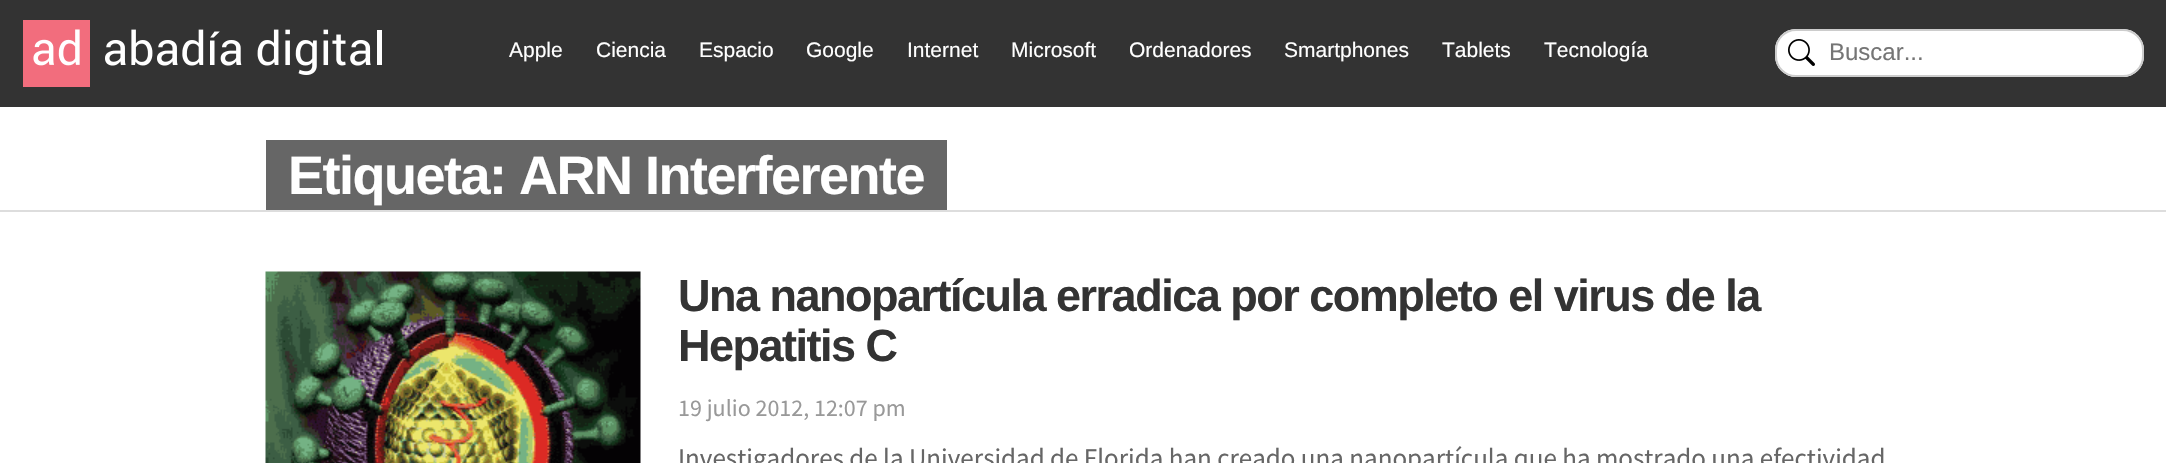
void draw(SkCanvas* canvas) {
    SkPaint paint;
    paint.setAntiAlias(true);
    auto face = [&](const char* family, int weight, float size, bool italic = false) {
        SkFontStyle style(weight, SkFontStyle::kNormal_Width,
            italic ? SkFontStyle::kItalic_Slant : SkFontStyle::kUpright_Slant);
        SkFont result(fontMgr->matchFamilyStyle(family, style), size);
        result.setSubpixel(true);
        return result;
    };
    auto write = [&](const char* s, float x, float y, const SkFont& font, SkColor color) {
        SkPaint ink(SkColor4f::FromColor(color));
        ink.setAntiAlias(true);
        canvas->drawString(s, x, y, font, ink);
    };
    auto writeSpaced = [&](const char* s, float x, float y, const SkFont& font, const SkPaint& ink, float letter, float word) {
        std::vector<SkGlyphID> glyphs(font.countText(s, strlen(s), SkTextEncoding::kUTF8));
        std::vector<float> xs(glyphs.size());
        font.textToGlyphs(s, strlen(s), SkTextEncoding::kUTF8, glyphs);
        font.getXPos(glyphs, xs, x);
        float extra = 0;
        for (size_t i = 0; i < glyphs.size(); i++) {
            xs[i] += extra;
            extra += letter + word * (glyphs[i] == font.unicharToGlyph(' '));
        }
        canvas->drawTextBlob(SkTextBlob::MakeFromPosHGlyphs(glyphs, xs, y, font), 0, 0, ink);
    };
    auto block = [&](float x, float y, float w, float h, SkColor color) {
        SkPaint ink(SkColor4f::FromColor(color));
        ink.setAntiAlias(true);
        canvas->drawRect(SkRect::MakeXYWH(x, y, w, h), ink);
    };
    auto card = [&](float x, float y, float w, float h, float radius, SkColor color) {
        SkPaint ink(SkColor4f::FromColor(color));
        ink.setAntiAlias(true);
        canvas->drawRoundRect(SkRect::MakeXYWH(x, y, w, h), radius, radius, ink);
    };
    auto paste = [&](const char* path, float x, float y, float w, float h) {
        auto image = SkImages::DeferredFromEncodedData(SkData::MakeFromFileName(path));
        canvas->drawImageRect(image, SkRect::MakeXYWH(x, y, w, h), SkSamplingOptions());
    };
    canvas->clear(SK_ColorWHITE);
    block(0, 0, 2166, 107, SkColorSetRGB(51, 51, 51));
    paste("pic1.png", 23, 20, 359, 67);
    auto kFont1 = face("Liberation Sans", 400, 21);
    write("Apple", 509, 57, kFont1, SK_ColorWHITE);
    write("Ciencia", 596, 57, kFont1, SK_ColorWHITE);
    write("Espacio", 699, 57, kFont1, SK_ColorWHITE);
    write("Google", 806, 57, kFont1, SK_ColorWHITE);
    write("Internet", 907, 57, kFont1, SK_ColorWHITE);
    write("Microsoft", 1011, 57, kFont1, SK_ColorWHITE);
    write("Ordenadores", 1129, 57, kFont1, SK_ColorWHITE);
    write("Smartphones", 1284, 57, kFont1, SK_ColorWHITE);
    write("Tablets", 1442, 57, kFont1, SK_ColorWHITE);
    write("Tecnología", 1544, 57, kFont1, SK_ColorWHITE);
    card(1775, 29, 369, 48, 21, SK_ColorWHITE);
    paste("pic2.png", 1788, 39, 27, 27);
    paint.setStyle(SkPaint::kStroke_Style);
    paint.setStrokeWidth(2);
    paint.setColor(SkColorSetRGB(204, 204, 204));
    canvas->drawRoundRect(SkRect::MakeXYWH(1776, 30, 367, 46), 20, 20, paint);
    auto kFont2 = face("Liberation Sans", 400, 24);
    write("Buscar...", 1829, 60, kFont2, SkColorSetRGB(117, 117, 117));
    block(266, 140, 681, 70, SkColorSetRGB(102, 102, 102));
    auto kFont3 = face("Liberation Sans", 700, 54);
    paint.setStyle(SkPaint::kFill_Style);
    paint.setColor(SK_ColorWHITE);
    writeSpaced("Etiqueta: ARN Interferente", 288, 194, kFont3, paint, -1.5f, 0);
    block(0, 210, 2166, 2, SkColorSetRGB(221, 221, 221));
    paste("pic3.png", 265, 271, 376, 192);
    auto kFont4 = face("Liberation Sans", 700, 45);
    paint.setColor(SkColorSetRGB(51, 51, 51));
    writeSpaced("Una nanopartícula erradica por completo el virus de la", 678, 311, kFont4, paint, -1.5f, 0);
    writeSpaced("Hepatitis C", 678, 361, kFont4, paint, -1.5f, 0);
    auto kFont5 = face("Source Sans Pro", 400, 24);
    write("19 julio 2012, 12:07 pm", 678, 416, kFont5, SkColorSetRGB(153, 153, 153));
    auto kFont6 = face("Source Sans Pro", 400, 27);
    write("Investigadores de la Universidad de Florida han creado una nanopartícula que ha mostrado una efectividad", 678, 467, kFont6, SkColorSetRGB(102, 102, 102));
}
